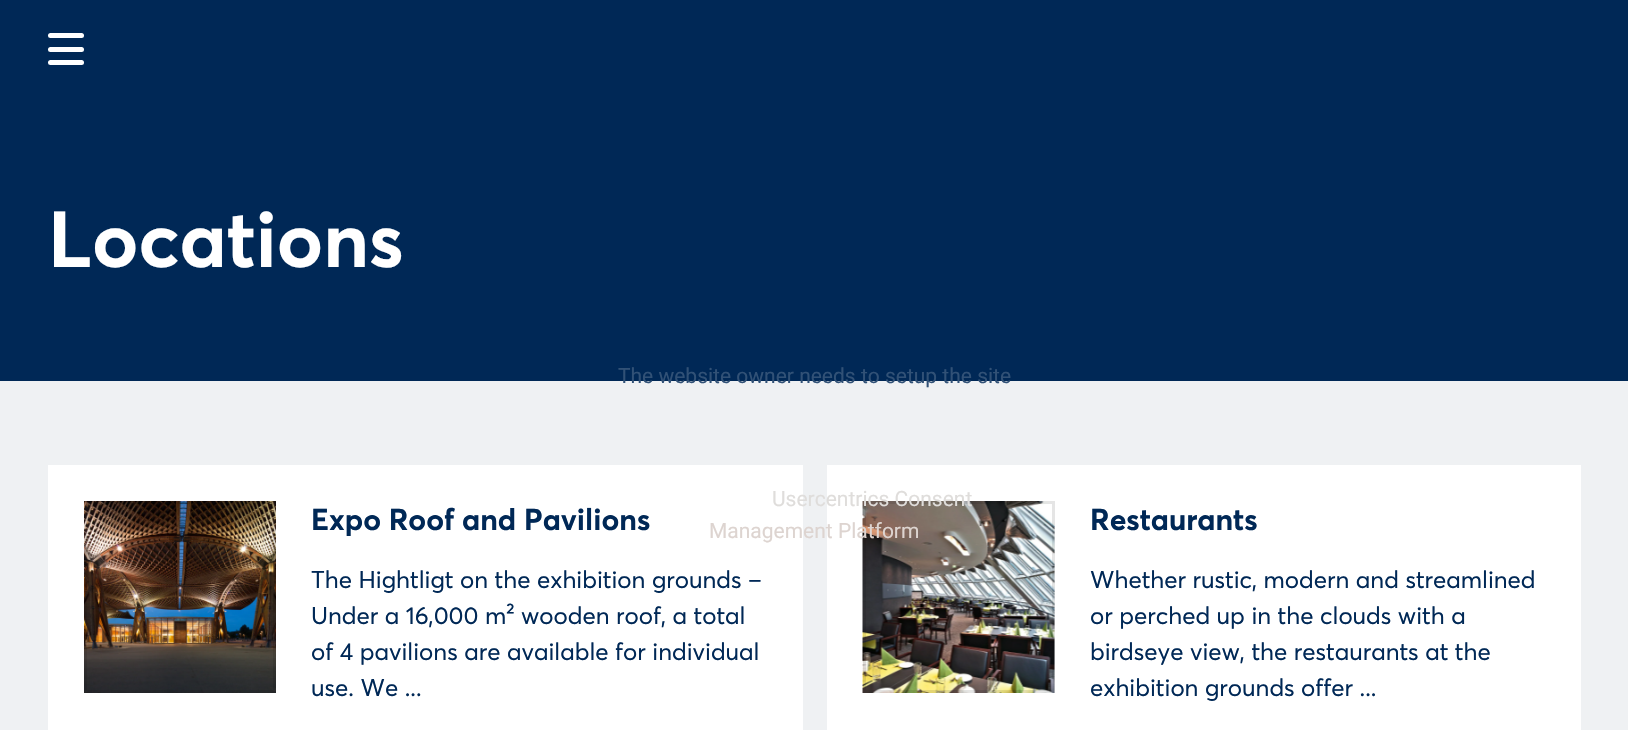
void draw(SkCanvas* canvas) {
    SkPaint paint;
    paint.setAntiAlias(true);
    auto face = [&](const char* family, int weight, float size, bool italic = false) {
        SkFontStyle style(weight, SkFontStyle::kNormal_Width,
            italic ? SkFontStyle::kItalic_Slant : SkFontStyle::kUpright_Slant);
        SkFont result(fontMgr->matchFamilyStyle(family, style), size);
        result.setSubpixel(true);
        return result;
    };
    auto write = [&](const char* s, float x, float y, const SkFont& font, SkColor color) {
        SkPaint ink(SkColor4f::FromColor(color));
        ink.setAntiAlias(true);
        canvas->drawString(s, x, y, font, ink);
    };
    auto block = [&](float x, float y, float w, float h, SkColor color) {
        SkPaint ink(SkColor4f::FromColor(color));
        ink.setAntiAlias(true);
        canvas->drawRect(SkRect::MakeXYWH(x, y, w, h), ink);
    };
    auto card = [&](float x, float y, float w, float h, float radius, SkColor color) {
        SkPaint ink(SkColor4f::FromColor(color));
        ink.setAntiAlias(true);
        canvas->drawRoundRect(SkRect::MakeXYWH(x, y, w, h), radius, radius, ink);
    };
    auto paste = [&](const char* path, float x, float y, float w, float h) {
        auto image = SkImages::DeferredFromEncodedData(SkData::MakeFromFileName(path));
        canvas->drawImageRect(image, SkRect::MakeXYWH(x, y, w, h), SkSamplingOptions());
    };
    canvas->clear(SkColorSetRGB(0, 40, 86));
    card(48, 33, 36, 5, 2.5f, SK_ColorWHITE);
    card(48, 47, 36, 5, 2.5f, SK_ColorWHITE);
    card(48, 60, 36, 5, 2.5f, SK_ColorWHITE);
    auto kFont1 = face("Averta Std", 700, 78);
    write("Locations", 48, 267, kFont1, SK_ColorWHITE);
    block(0, 381, 1628, 349, SkColorSetRGB(239, 241, 243));
    block(48, 465, 755, 265, SK_ColorWHITE);
    paste("pic1.png", 84, 501, 192, 192);
    paint.setStyle(SkPaint::kStroke_Style);
    paint.setStrokeWidth(3);
    paint.setColor(SkColorSetARGB(26, 0, 0, 0));
    canvas->drawRect(SkRect::MakeXYWH(85.5f, 502.5f, 189, 189), paint);
    auto kFont2 = face("Averta Std", 700, 30);
    write("Expo Roof and Pavilions", 311, 530, kFont2, SkColorSetRGB(0, 40, 86));
    auto kFont3 = face("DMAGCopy", 400, 24);
    write("The Hightligt on the exhibition grounds –", 311, 588, kFont3, SkColorSetRGB(0, 40, 86));
    write("Under a 16,000 m² wooden roof, a total", 311, 624, kFont3, SkColorSetRGB(0, 40, 86));
    write("of 4 pavilions are available for individual", 311, 660, kFont3, SkColorSetRGB(0, 40, 86));
    write("use. We ...", 311, 696, kFont3, SkColorSetRGB(0, 40, 86));
    block(827, 465, 754, 265, SK_ColorWHITE);
    paste("pic2.png", 862, 501, 193, 192);
    canvas->drawRect(SkRect::MakeXYWH(864.5f, 502.5f, 189, 189), paint);
    write("Restaurants", 1090, 530, kFont2, SkColorSetRGB(0, 40, 86));
    write("Whether rustic, modern and streamlined", 1090, 588, kFont3, SkColorSetRGB(0, 40, 86));
    write("or perched up in the clouds with a", 1090, 624, kFont3, SkColorSetRGB(0, 40, 86));
    write("birdseye view, the restaurants at the", 1090, 660, kFont3, SkColorSetRGB(0, 40, 86));
    write("exhibition grounds offer ...", 1090, 696, kFont3, SkColorSetRGB(0, 40, 86));
    auto kFont4 = face("Roboto", 400, 21);
    write("The website owner needs to setup the site", 618, 383, kFont4, SkColorSetRGB(49, 81, 118));
    write("Usercentrics Consent", 772, 506, kFont4, SkColorSetRGB(223, 221, 219));
    write("Management Platform", 709, 538, kFont4, SkColorSetRGB(221, 212, 208));
}
